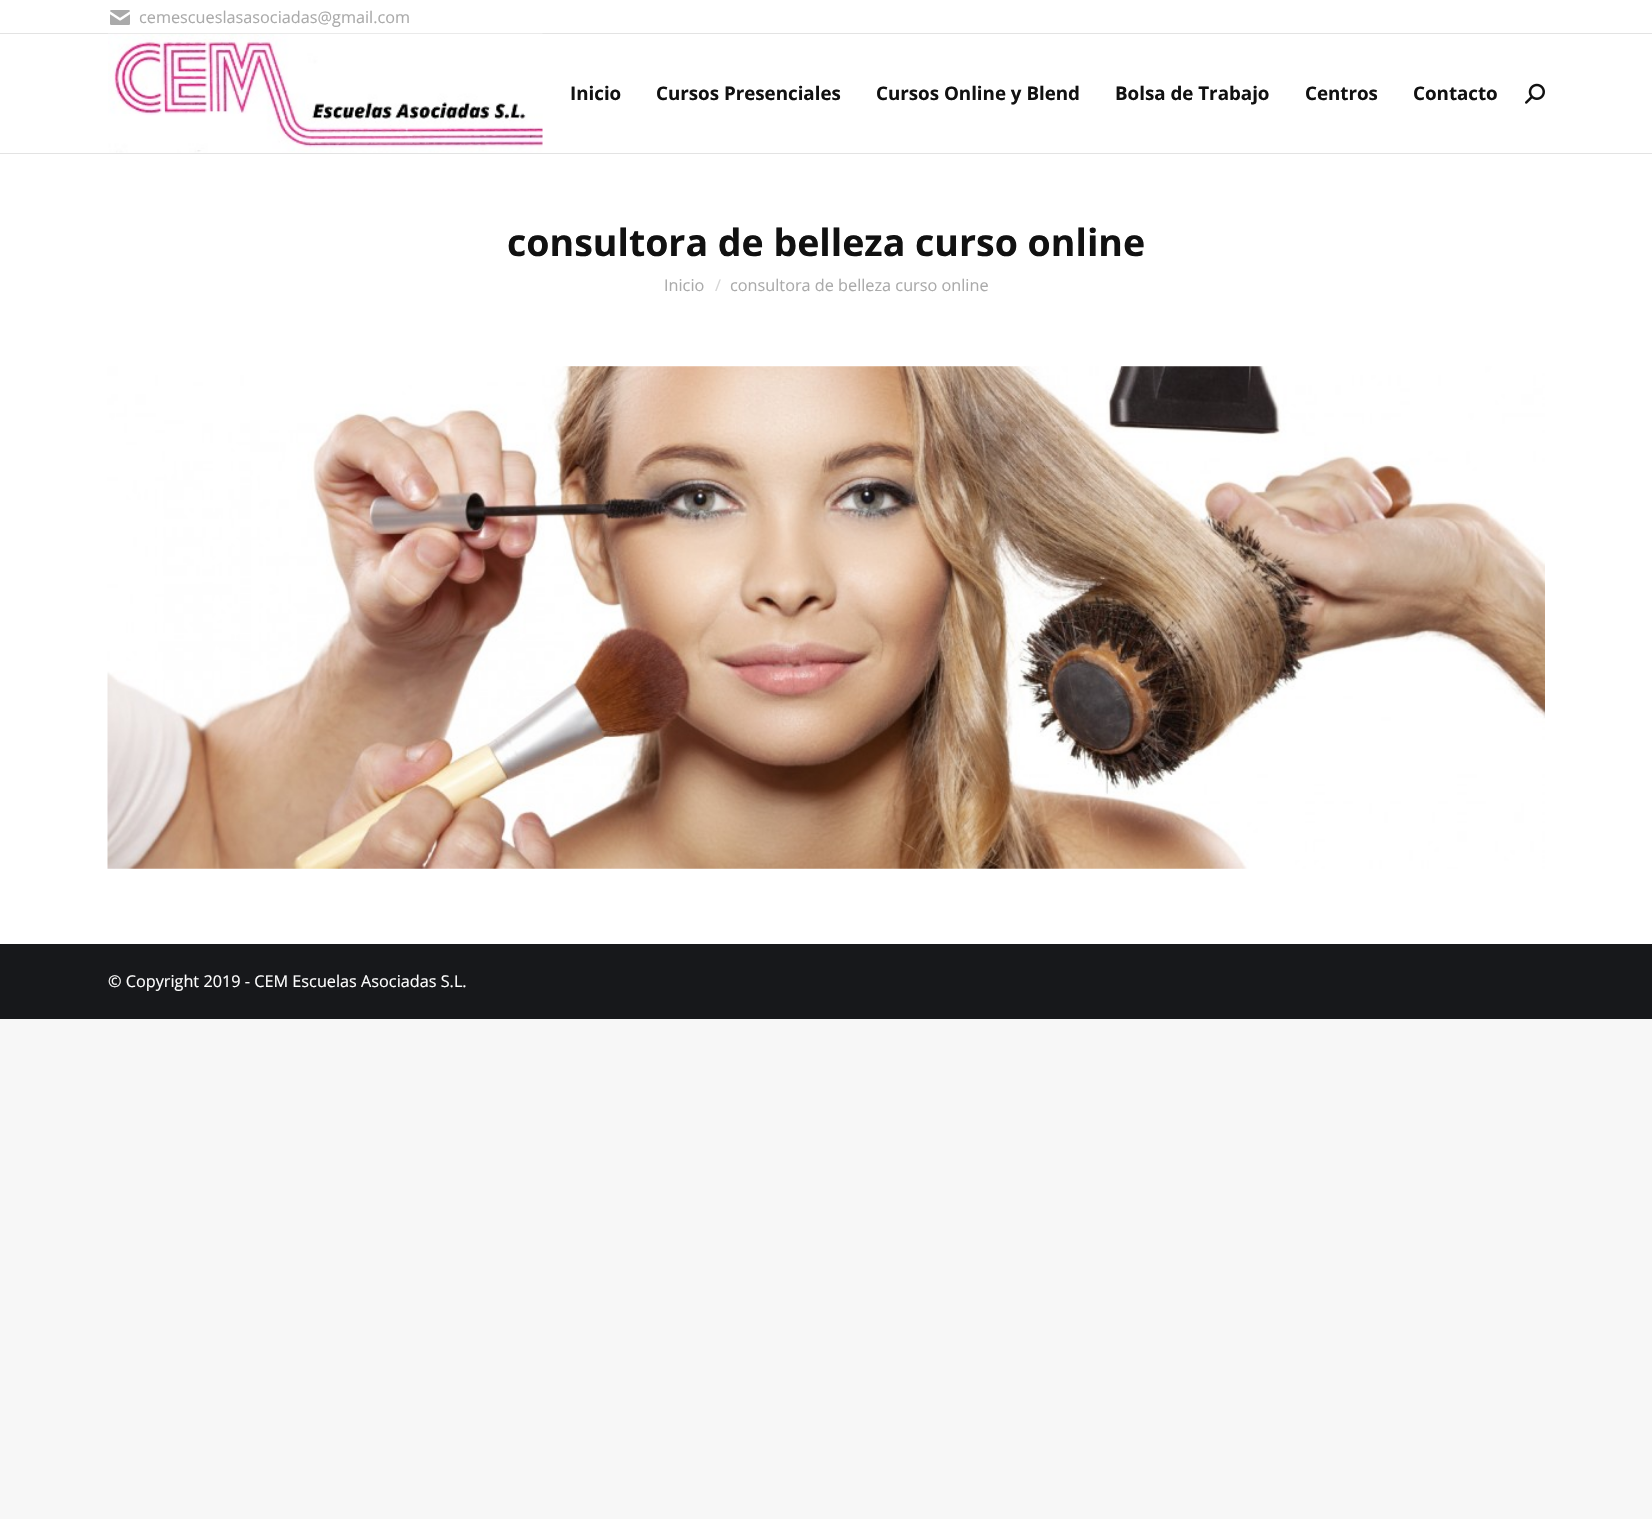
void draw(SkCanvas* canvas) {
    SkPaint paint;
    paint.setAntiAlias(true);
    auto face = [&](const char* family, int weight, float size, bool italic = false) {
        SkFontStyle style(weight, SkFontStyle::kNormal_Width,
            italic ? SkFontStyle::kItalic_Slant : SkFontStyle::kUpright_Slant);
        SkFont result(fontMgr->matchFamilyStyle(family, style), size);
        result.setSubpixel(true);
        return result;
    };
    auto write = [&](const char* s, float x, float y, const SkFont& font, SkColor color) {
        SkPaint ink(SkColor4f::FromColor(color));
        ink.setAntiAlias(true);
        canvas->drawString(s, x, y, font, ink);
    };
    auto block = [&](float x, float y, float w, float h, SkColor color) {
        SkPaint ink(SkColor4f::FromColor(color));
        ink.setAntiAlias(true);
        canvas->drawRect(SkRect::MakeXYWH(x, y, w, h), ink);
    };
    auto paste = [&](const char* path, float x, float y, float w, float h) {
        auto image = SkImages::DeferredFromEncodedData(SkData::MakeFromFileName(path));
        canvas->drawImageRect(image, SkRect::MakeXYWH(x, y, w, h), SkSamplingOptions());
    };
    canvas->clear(SkColorSetRGB(247, 247, 247));
    block(0, 0, 1652, 944, SK_ColorWHITE);
    block(0, 153, 1652, 1, SkColorSetRGB(227, 227, 227));
    paste("pic1.png", 110, 10, 20, 15);
    auto kFont1 = face("Open Sans", 400, 16.25f);
    write("cemescueslasasociadas@gmail.com", 139, 23, kFont1, SkColorSetRGB(170, 170, 170));
    block(0, 33, 1652, 1, SkColorSetRGB(227, 227, 227));
    paste("pic2.png", 108, 33, 435, 120);
    auto kFont2 = face("Open Sans", 700, 18.75f);
    write("Inicio", 570, 100, kFont2, SkColorSetRGB(17, 17, 17));
    write("Cursos Presenciales", 656, 100, kFont2, SkColorSetRGB(17, 17, 17));
    write("Cursos Online y Blend", 876, 100, kFont2, SkColorSetRGB(17, 17, 17));
    write("Bolsa de Trabajo", 1115, 100, kFont2, SkColorSetRGB(17, 17, 17));
    write("Centros", 1305, 100, kFont2, SkColorSetRGB(17, 17, 17));
    write("Contacto", 1413, 100, kFont2, SkColorSetRGB(17, 17, 17));
    paste("pic3.png", 1525, 83, 20, 21);
    auto kFont3 = face("Open Sans", 700, 37.5f);
    write("consultora de belleza curso online", 507, 256, kFont3, SkColorSetRGB(17, 17, 17));
    write("Inicio", 664, 291, kFont1, SkColorSetRGB(170, 170, 170));
    write("/", 715, 291, kFont1, SkColorSetRGB(213, 213, 213));
    write("consultora de belleza curso online", 730, 291, kFont1, SkColorSetRGB(170, 170, 170));
    paste("pic4.png", 107, 366, 1438, 503);
    block(0, 944, 1652, 75, SkColorSetRGB(23, 24, 27));
    write("© Copyright 2019 - CEM Escuelas Asociadas S.L.", 108, 987, kFont1, SK_ColorWHITE);
}
